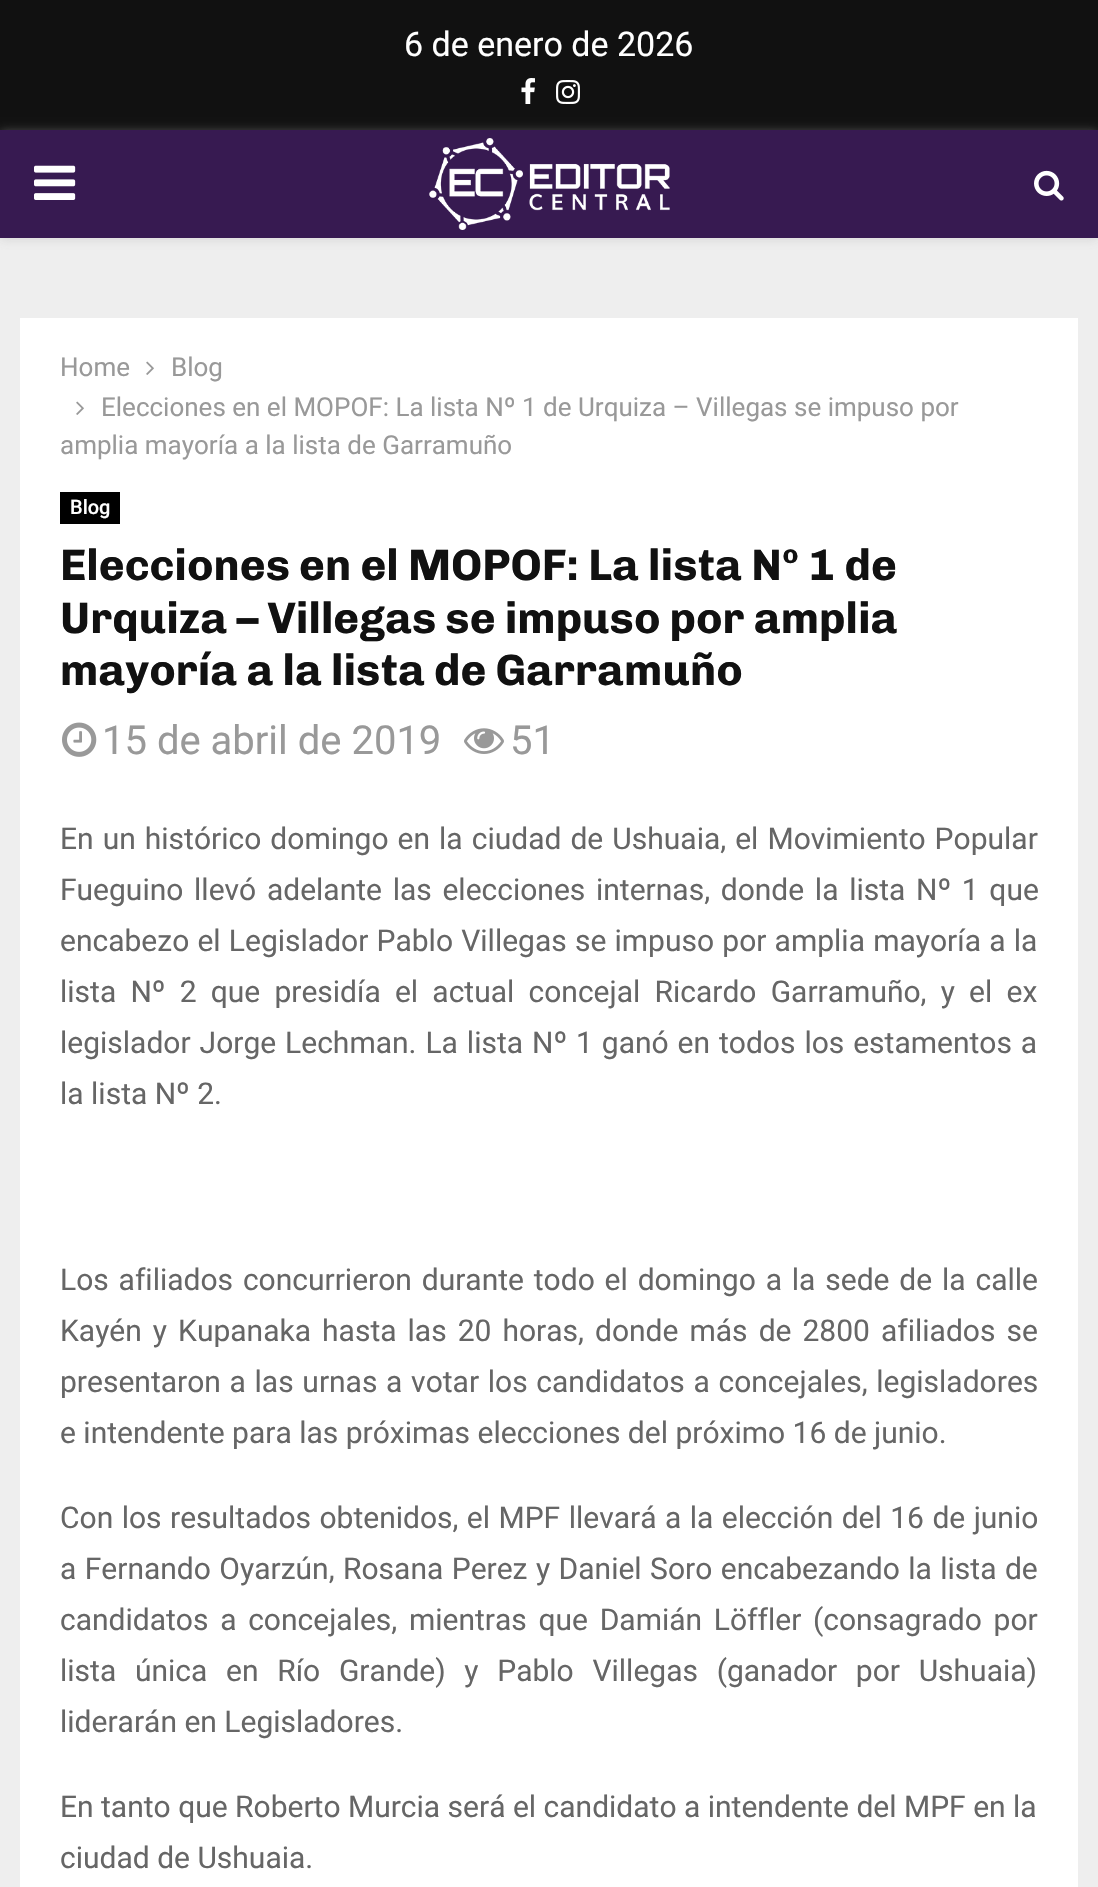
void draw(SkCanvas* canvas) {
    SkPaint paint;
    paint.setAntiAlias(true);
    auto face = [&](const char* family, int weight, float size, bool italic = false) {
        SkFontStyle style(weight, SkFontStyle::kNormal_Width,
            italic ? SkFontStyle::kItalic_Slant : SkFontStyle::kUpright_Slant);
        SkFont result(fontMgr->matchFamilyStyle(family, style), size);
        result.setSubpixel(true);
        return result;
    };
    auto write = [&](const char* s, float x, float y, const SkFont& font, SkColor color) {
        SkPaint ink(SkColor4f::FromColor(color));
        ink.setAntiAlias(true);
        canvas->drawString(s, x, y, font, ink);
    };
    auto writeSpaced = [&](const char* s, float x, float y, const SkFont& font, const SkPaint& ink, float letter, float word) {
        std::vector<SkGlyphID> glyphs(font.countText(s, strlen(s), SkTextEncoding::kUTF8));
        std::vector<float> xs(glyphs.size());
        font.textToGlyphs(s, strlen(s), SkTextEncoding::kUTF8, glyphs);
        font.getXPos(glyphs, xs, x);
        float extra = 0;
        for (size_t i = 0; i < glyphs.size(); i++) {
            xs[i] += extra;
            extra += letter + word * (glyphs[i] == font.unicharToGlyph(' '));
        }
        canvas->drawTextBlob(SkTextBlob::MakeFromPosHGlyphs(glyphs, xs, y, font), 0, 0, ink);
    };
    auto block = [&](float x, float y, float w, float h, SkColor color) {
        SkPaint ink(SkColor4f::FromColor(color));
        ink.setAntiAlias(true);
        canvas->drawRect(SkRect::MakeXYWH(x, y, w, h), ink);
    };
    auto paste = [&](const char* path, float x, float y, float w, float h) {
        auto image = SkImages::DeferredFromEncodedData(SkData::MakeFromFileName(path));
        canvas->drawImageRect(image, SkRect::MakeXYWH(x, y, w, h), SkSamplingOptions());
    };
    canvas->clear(SkColorSetRGB(238, 238, 238));
    block(0, 0, 1098, 130, SkColorSetRGB(17, 17, 17));
    auto kFont1 = face("Roboto", 400, 34);
    write("6 de enero de 2026", 404, 56, kFont1, SK_ColorWHITE);
    paste("pic1.png", 521, 78, 14, 26);
    paste("pic2.png", 556, 80, 24, 24);
    paint.setColor(SkColorSetARGB(117, 190, 190, 190));
    paint.setMaskFilter(SkMaskFilter::MakeBlur(kNormal_SkBlurStyle, 5));
    canvas->drawRect(SkRect::MakeXYWH(0, 132, 1098, 108), paint);
    paint.setMaskFilter(nullptr);
    block(0, 130, 1098, 108, SkColorSetRGB(55, 26, 81));
    paste("pic3.png", 34, 165, 42, 35);
    paste("pic4.png", 429, 138, 241, 92);
    paste("pic5.png", 1034, 170, 30, 31);
    block(20, 318, 1058, 1569, SK_ColorWHITE);
    auto kFont2 = face("Roboto", 400, 26);
    write("Home", 60, 376, kFont2, SkColorSetRGB(153, 153, 153));
    paste("pic6.png", 146, 361, 8, 14);
    write("Blog", 171, 376, kFont2, SkColorSetRGB(153, 153, 153));
    paste("pic6.png", 76, 401, 8, 14);
    write("Elecciones en el MOPOF: La lista Nº 1 de Urquiza – Villegas se impuso por", 101, 416, kFont2, SkColorSetRGB(153, 153, 153));
    write("amplia mayoría a la lista de Garramuño", 60, 454, kFont2, SkColorSetRGB(153, 153, 153));
    block(60, 492, 60, 32, SK_ColorBLACK);
    auto kFont3 = face("Roboto", 500, 20);
    write("Blog", 70, 514, kFont3, SK_ColorWHITE);
    auto kFont4 = face("Chivo", 700, 44);
    write("Elecciones en el MOPOF: La lista Nº 1 de", 60, 580, kFont4, SkColorSetRGB(17, 17, 17));
    write("Urquiza – Villegas se impuso por amplia", 60, 633, kFont4, SkColorSetRGB(17, 17, 17));
    write("mayoría a la lista de Garramuño", 60, 685, kFont4, SkColorSetRGB(17, 17, 17));
    paste("pic7.png", 62, 722, 35, 35);
    auto kFont5 = face("Roboto", 400, 40);
    write("15 de abril de 2019", 102, 754, kFont5, SkColorSetRGB(153, 153, 153));
    paste("pic8.png", 464, 728, 40, 26);
    write("51", 510, 754, kFont5, SkColorSetRGB(153, 153, 153));
    auto kFont6 = face("Roboto", 400, 30);
    paint.setColor(SkColorSetRGB(102, 102, 102));
    writeSpaced("En un histórico domingo en la ciudad de Ushuaia, el Movimiento Popular", 60, 849, kFont6, paint, 0, 1.6f);
    writeSpaced("Fueguino llevó adelante las elecciones internas, donde la lista Nº 1 que", 60, 900, kFont6, paint, 0, 3.25f);
    writeSpaced("encabezo el Legislador Pablo Villegas se impuso por amplia mayoría a la", 60, 951, kFont6, paint, 0, 0.75f);
    writeSpaced("lista Nº 2 que presidía el actual concejal Ricardo Garramuño, y el ex", 60, 1002, kFont6, paint, 0, 6.75f);
    writeSpaced("legislador Jorge Lechman. La lista Nº 1 ganó en todos los estamentos a", 60, 1053, kFont6, paint, 0, 1.5f);
    write("la lista Nº 2.", 60, 1104, kFont6, SkColorSetRGB(102, 102, 102));
    writeSpaced("Los afiliados concurrieron durante todo el domingo a la sede de la calle", 60, 1290, kFont6, paint, 0, 2.4f);
    writeSpaced("Kayén y Kupanaka hasta las 20 horas, donde más de 2800 afiliados se", 60, 1341, kFont6, paint, 0, 3.6f);
    writeSpaced("presentaron a las urnas a votar los candidatos a concejales, legisladores", 60, 1392, kFont6, paint, 0, 1.25f);
    write("e intendente para las próximas elecciones del próximo 16 de junio.", 60, 1443, kFont6, SkColorSetRGB(102, 102, 102));
    writeSpaced("Con los resultados obtenidos, el MPF llevará a la elección del 16 de junio", 60, 1528, kFont6, paint, 0, 1);
    writeSpaced("a Fernando Oyarzún, Rosana Perez y Daniel Soro encabezando la lista de", 60, 1579, kFont6, paint, 0, 1);
    writeSpaced("candidatos a concejales, mientras que Damián Löffler (consagrado por", 60, 1630, kFont6, paint, 0, 4.25f);
    writeSpaced("lista única en Río Grande) y Pablo Villegas (ganador por Ushuaia)", 60, 1681, kFont6, paint, 0, 11.25f);
    write("liderarán en Legisladores.", 60, 1732, kFont6, SkColorSetRGB(102, 102, 102));
    write("En tanto que Roberto Murcia será el candidato a intendente del MPF en la", 60, 1817, kFont6, SkColorSetRGB(102, 102, 102));
    write("ciudad de Ushuaia.", 60, 1868, kFont6, SkColorSetRGB(102, 102, 102));
}
